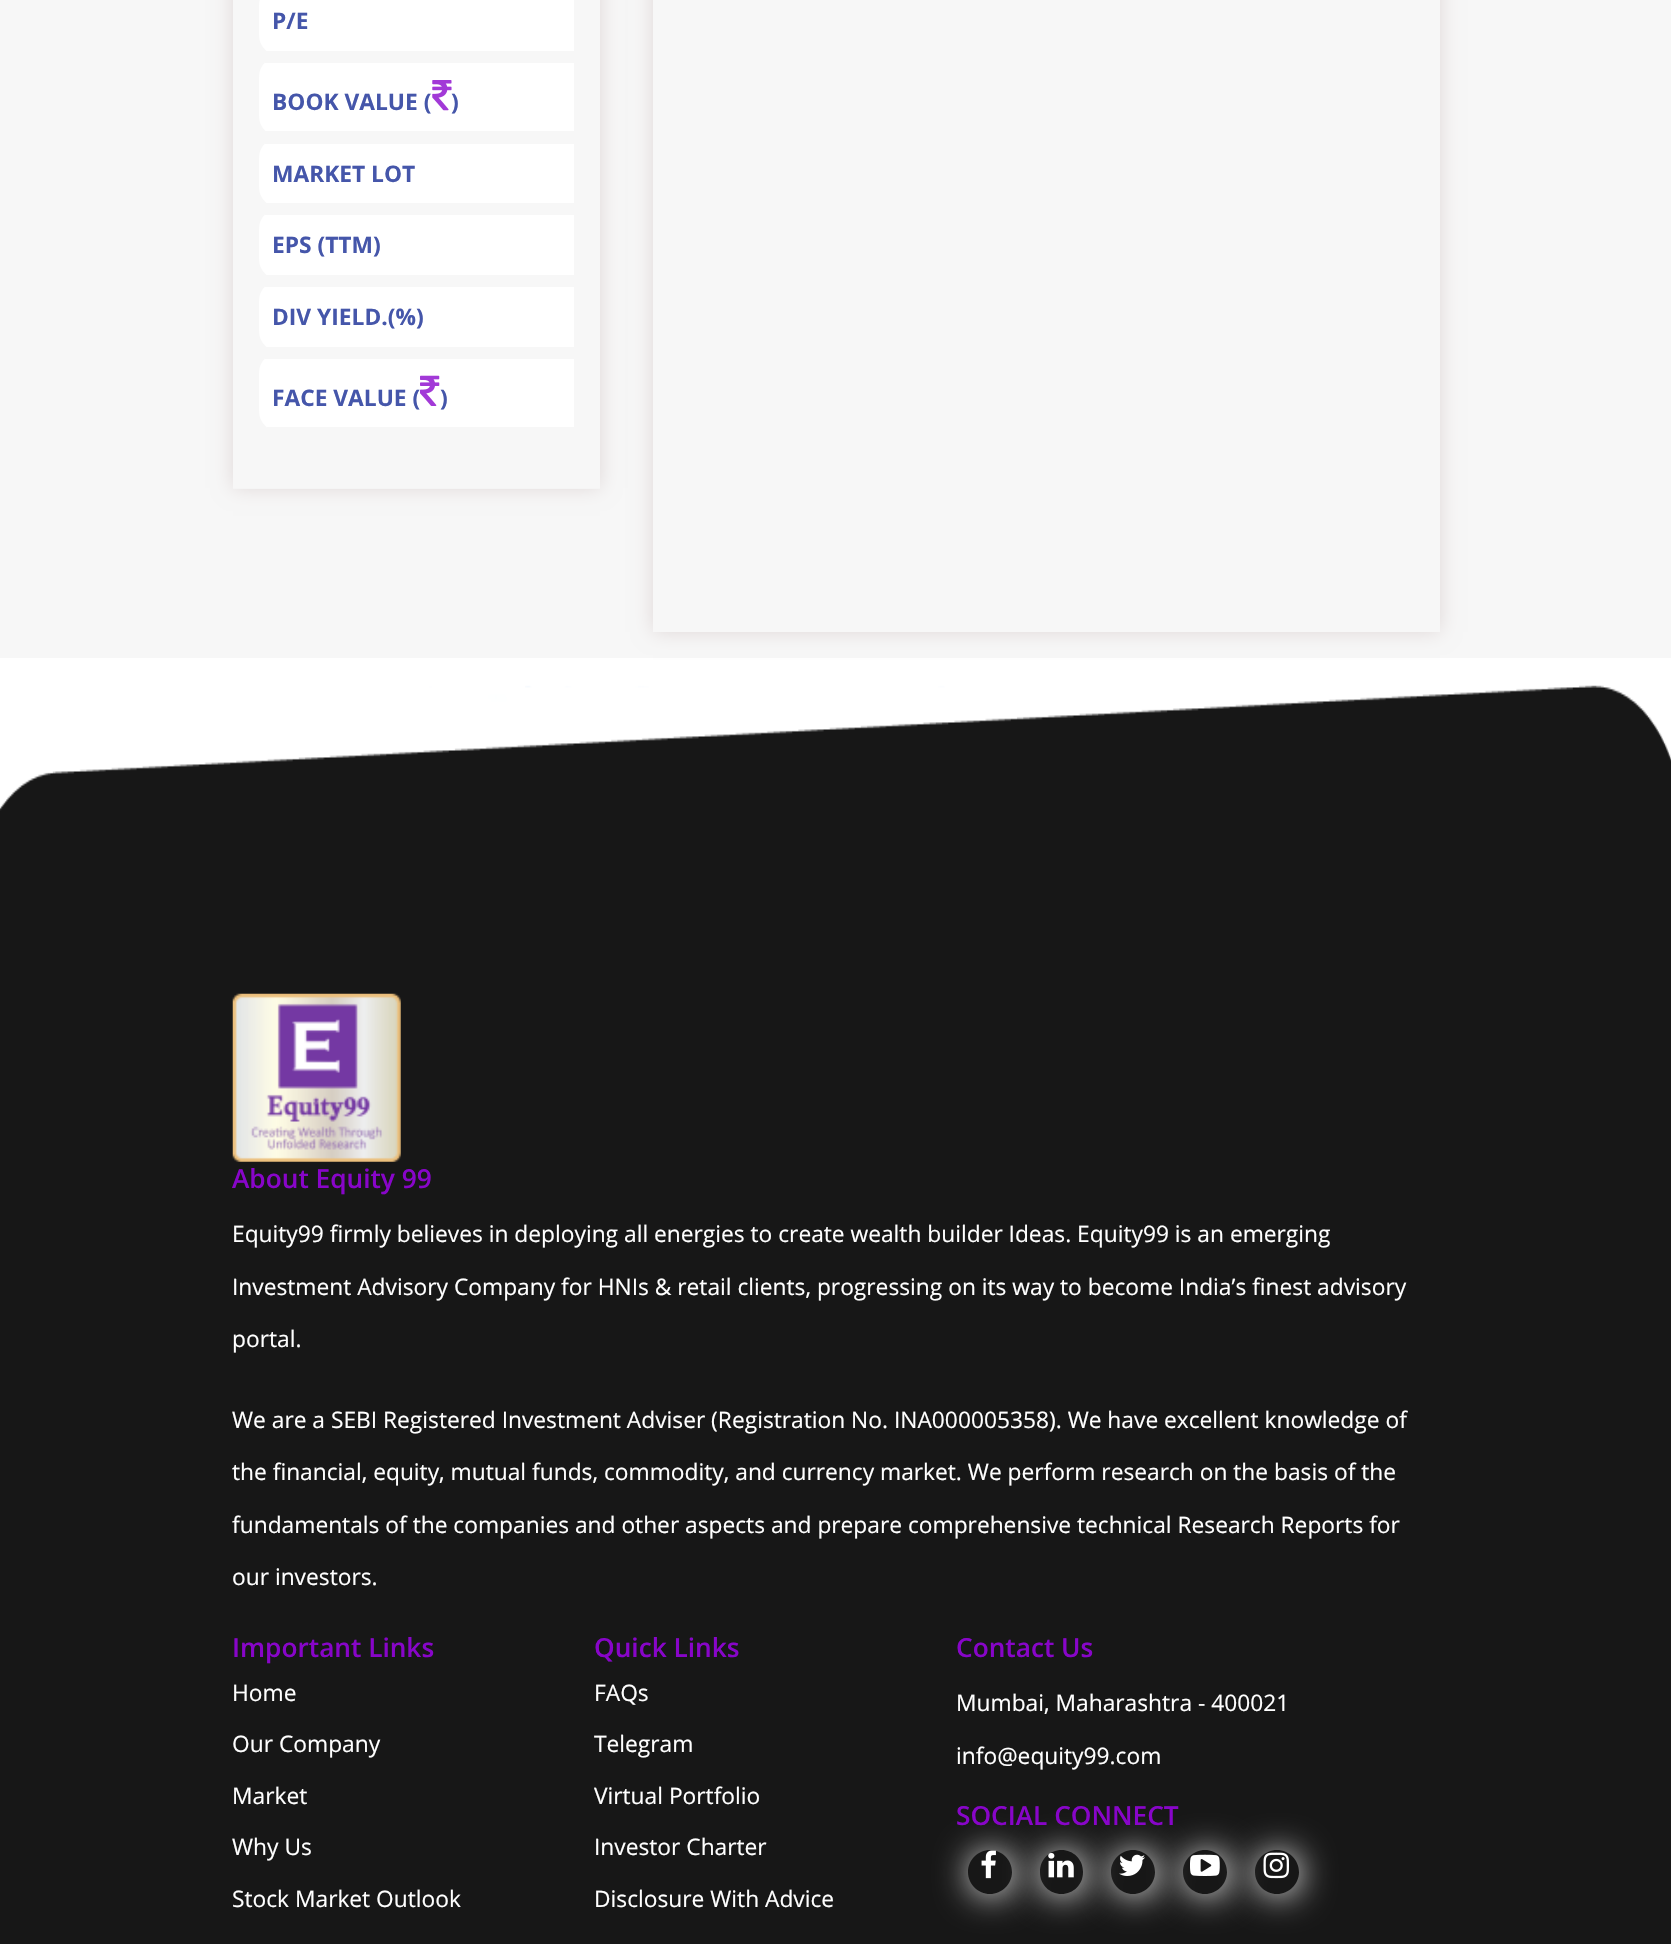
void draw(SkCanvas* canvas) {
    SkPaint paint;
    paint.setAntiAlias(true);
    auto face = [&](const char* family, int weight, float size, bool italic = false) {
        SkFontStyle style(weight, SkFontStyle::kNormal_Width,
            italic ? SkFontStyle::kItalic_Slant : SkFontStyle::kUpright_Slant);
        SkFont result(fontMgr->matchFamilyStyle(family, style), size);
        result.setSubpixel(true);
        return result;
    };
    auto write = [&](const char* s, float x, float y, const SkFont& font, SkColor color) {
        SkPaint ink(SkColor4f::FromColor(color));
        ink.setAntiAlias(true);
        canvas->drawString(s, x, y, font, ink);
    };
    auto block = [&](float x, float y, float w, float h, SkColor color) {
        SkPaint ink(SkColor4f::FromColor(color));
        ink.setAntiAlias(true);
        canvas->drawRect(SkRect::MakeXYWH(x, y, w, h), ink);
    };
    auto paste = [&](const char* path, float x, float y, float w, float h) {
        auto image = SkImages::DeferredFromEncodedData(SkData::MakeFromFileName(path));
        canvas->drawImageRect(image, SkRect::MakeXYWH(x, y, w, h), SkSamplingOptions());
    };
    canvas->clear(SK_ColorWHITE);
    block(0, 0, 1671, 658, SkColorSetRGB(247, 247, 247));
    canvas->save();
    canvas->clipPath(SkPathBuilder(SkPathFillType::kEvenOdd).moveTo(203, 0).lineTo(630, 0).lineTo(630, 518).lineTo(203, 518).close().moveTo(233, -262).lineTo(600, -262).lineTo(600, 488).lineTo(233, 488).close().detach(), true);
    paint.setColor(SkColorSetRGB(223, 215, 215));
    paint.setMaskFilter(SkMaskFilter::MakeBlur(kNormal_SkBlurStyle, 9.5f));
    canvas->drawRect(SkRect::MakeXYWH(233, -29, 367, 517), paint);
    paint.setMaskFilter(nullptr);
    canvas->restore();
    block(233, 488, 367, 1, SkColorSetRGB(245, 245, 245));
    paint.setColor(SK_ColorWHITE);
    canvas->drawPath(SkPathBuilder().moveTo(280, -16).lineTo(574, -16).lineTo(574, 56).lineTo(280, 56).cubicTo(268.5f, 56, 259, 46.5f, 259, 35).lineTo(259, 5).cubicTo(259, -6.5f, 268.5f, -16, 280, -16).close().detach(), paint);
    canvas->drawPath(SkPathBuilder().moveTo(280, 56).lineTo(574, 56).lineTo(574, 137).lineTo(280, 137).cubicTo(268.5f, 137, 259, 127.5f, 259, 116).lineTo(259, 77).cubicTo(259, 65.5f, 268.5f, 56, 280, 56).close().detach(), paint);
    block(265, 51, 309, 12, SkColorSetRGB(247, 247, 247));
    auto kFont1 = face("Open Sans", 700, 22.75f);
    write("P/E", 272, 29, kFont1, SkColorSetRGB(69, 86, 170));
    canvas->drawPath(SkPathBuilder().moveTo(280, 137).lineTo(574, 137).lineTo(574, 208).lineTo(280, 208).cubicTo(268.5f, 208, 259, 198.5f, 259, 187).lineTo(259, 158).cubicTo(259, 146.5f, 268.5f, 137, 280, 137).close().detach(), paint);
    block(265, 131, 309, 13, SkColorSetRGB(247, 247, 247));
    write("BOOK VALUE (", 272, 110, kFont1, SkColorSetRGB(69, 86, 170));
    paste("pic1.png", 432, 80, 20, 31);
    write(")", 451, 110, kFont1, SkColorSetRGB(69, 86, 170));
    canvas->drawPath(SkPathBuilder().moveTo(280, 208).lineTo(574, 208).lineTo(574, 280).lineTo(280, 280).cubicTo(268.5f, 280, 259, 270.5f, 259, 259).lineTo(259, 229).cubicTo(259, 217.5f, 268.5f, 208, 280, 208).close().detach(), paint);
    block(265, 203, 309, 12, SkColorSetRGB(247, 247, 247));
    write("MARKET LOT", 272, 182, kFont1, SkColorSetRGB(69, 86, 170));
    canvas->drawPath(SkPathBuilder().moveTo(280, 280).lineTo(574, 280).lineTo(574, 352).lineTo(280, 352).cubicTo(268.5f, 352, 259, 342.5f, 259, 331).lineTo(259, 301).cubicTo(259, 289.5f, 268.5f, 280, 280, 280).close().detach(), paint);
    block(265, 275, 309, 12, SkColorSetRGB(247, 247, 247));
    write("EPS (TTM)", 272, 253, kFont1, SkColorSetRGB(69, 86, 170));
    canvas->drawPath(SkPathBuilder().moveTo(280, 352).lineTo(574, 352).lineTo(574, 432).lineTo(280, 432).cubicTo(268.5f, 432, 259, 422.5f, 259, 411).lineTo(259, 373).cubicTo(259, 361.5f, 268.5f, 352, 280, 352).close().detach(), paint);
    block(265, 347, 309, 12, SkColorSetRGB(247, 247, 247));
    write("DIV YIELD.(%)", 272, 325, kFont1, SkColorSetRGB(69, 86, 170));
    block(267, 427, 307, 5, SkColorSetRGB(247, 247, 247));
    write("FACE VALUE (", 272, 406, kFont1, SkColorSetRGB(69, 86, 170));
    paste("pic2.png", 420, 375, 20, 31);
    write(")", 440, 406, kFont1, SkColorSetRGB(69, 86, 170));
    canvas->save();
    canvas->clipPath(SkPathBuilder(SkPathFillType::kEvenOdd).moveTo(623, 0).lineTo(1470, 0).lineTo(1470, 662).lineTo(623, 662).close().moveTo(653, -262).lineTo(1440, -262).lineTo(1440, 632).lineTo(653, 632).close().detach(), true);
    paint.setColor(SkColorSetRGB(223, 215, 215));
    paint.setMaskFilter(SkMaskFilter::MakeBlur(kNormal_SkBlurStyle, 9.5f));
    canvas->drawRect(SkRect::MakeXYWH(653, -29, 787, 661), paint);
    paint.setMaskFilter(nullptr);
    canvas->restore();
    block(0, 994, 1671, 950, SkColorSetRGB(23, 23, 23));
    paste("pic3.png", 0, 685, 1671, 309);
    paste("pic4.png", 232, 993, 169, 169);
    auto kFont2 = face("Open Sans", 600, 26.25f);
    write("About Equity 99", 232, 1188, kFont2, SkColorSetRGB(136, 5, 201));
    auto kFont3 = face("Open Sans", 400, 22.75f);
    write("Equity99 firmly believes in deploying all energies to create wealth builder Ideas. Equity99 is an emerging", 232, 1242, kFont3, SK_ColorWHITE);
    write("Investment Advisory Company for HNIs & retail clients, progressing on its way to become India’s finest advisory", 232, 1295, kFont3, SK_ColorWHITE);
    write("portal.", 232, 1347, kFont3, SK_ColorWHITE);
    write("We are a SEBI Registered Investment Adviser (Registration No. INA000005358). We have excellent knowledge of", 232, 1428, kFont3, SK_ColorWHITE);
    write("the financial, equity, mutual funds, commodity, and currency market. We perform research on the basis of the", 232, 1480, kFont3, SK_ColorWHITE);
    write("fundamentals of the companies and other aspects and prepare comprehensive technical Research Reports for", 232, 1533, kFont3, SK_ColorWHITE);
    write("our investors.", 232, 1585, kFont3, SK_ColorWHITE);
    write("Important Links", 232, 1657, kFont2, SkColorSetRGB(136, 5, 201));
    write("Home", 232, 1701, kFont3, SK_ColorWHITE);
    write("Our Company", 232, 1752, kFont3, SK_ColorWHITE);
    write("Market", 232, 1804, kFont3, SK_ColorWHITE);
    write("Why Us", 232, 1855, kFont3, SK_ColorWHITE);
    write("Stock Market Outlook", 232, 1907, kFont3, SK_ColorWHITE);
    write("Quick Links", 594, 1657, kFont2, SkColorSetRGB(136, 5, 201));
    write("FAQs", 594, 1701, kFont3, SK_ColorWHITE);
    write("Telegram", 594, 1752, kFont3, SK_ColorWHITE);
    write("Virtual Portfolio", 594, 1804, kFont3, SK_ColorWHITE);
    write("Investor Charter", 594, 1855, kFont3, SK_ColorWHITE);
    write("Disclosure With Advice", 594, 1907, kFont3, SK_ColorWHITE);
    write("Contact Us", 956, 1657, kFont2, SkColorSetRGB(136, 5, 201));
    write("Mumbai, Maharashtra - 400021", 956, 1711, kFont3, SK_ColorWHITE);
    write("info@equity99.com", 956, 1764, kFont3, SK_ColorWHITE);
    canvas->save();
    canvas->clipPath(SkPathBuilder(SkPathFillType::kEvenOdd).moveTo(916, 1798).lineTo(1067, 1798).lineTo(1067, 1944).lineTo(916, 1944).close().moveTo(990, 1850).cubicTo(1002, 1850, 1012, 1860, 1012, 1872).cubicTo(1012, 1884, 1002, 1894, 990, 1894).cubicTo(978, 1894, 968, 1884, 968, 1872).cubicTo(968, 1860, 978, 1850, 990, 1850).close().detach(), true);
    paint.setColor(SK_ColorWHITE);
    paint.setMaskFilter(SkMaskFilter::MakeBlur(kNormal_SkBlurStyle, 17.5f));
    canvas->drawRoundRect(SkRect::MakeXYWH(970, 1852, 43, 43), 21.5f, 21.5f, paint);
    paint.setMaskFilter(nullptr);
    canvas->restore();
    paste("pic5.png", 981, 1850, 15, 29);
    canvas->save();
    canvas->clipPath(SkPathBuilder(SkPathFillType::kEvenOdd).moveTo(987, 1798).lineTo(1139, 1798).lineTo(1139, 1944).lineTo(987, 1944).close().moveTo(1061.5f, 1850).cubicTo(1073.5f, 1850, 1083, 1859.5f, 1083, 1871.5f).lineTo(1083, 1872.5f).cubicTo(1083, 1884.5f, 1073.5f, 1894, 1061.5f, 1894).cubicTo(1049.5f, 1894, 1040, 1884.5f, 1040, 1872.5f).lineTo(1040, 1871.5f).cubicTo(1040, 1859.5f, 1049.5f, 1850, 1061.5f, 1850).close().detach(), true);
    paint.setMaskFilter(SkMaskFilter::MakeBlur(kNormal_SkBlurStyle, 17.5f));
    canvas->drawRoundRect(SkRect::MakeXYWH(1041, 1852, 44, 43), 21.5f, 21.5f, paint);
    paint.setMaskFilter(nullptr);
    canvas->restore();
    paste("pic6.png", 1048, 1853, 26, 25);
    canvas->save();
    canvas->clipPath(SkPathBuilder(SkPathFillType::kEvenOdd).moveTo(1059, 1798).lineTo(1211, 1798).lineTo(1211, 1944).lineTo(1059, 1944).close().moveTo(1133, 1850).cubicTo(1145, 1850, 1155, 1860, 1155, 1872).cubicTo(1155, 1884, 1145, 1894, 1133, 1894).cubicTo(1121, 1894, 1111, 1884, 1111, 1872).cubicTo(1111, 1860, 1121, 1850, 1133, 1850).close().detach(), true);
    paint.setMaskFilter(SkMaskFilter::MakeBlur(kNormal_SkBlurStyle, 17.5f));
    canvas->drawRoundRect(SkRect::MakeXYWH(1113, 1852, 44, 43), 21.5f, 21.5f, paint);
    paint.setMaskFilter(nullptr);
    canvas->restore();
    paste("pic7.png", 1119, 1854, 26, 22);
    canvas->save();
    canvas->clipPath(SkPathBuilder(SkPathFillType::kEvenOdd).moveTo(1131, 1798).lineTo(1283, 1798).lineTo(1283, 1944).lineTo(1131, 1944).close().moveTo(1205, 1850).cubicTo(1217, 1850, 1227, 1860, 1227, 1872).cubicTo(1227, 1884, 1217, 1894, 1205, 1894).cubicTo(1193, 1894, 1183, 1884, 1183, 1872).cubicTo(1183, 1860, 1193, 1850, 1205, 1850).close().detach(), true);
    paint.setMaskFilter(SkMaskFilter::MakeBlur(kNormal_SkBlurStyle, 17.5f));
    canvas->drawRoundRect(SkRect::MakeXYWH(1185, 1852, 44, 43), 21.5f, 21.5f, paint);
    paint.setMaskFilter(nullptr);
    canvas->restore();
    paste("pic8.png", 1190, 1854, 30, 22);
    canvas->save();
    canvas->clipPath(SkPathBuilder(SkPathFillType::kEvenOdd).moveTo(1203, 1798).lineTo(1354, 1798).lineTo(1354, 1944).lineTo(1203, 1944).close().moveTo(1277, 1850).cubicTo(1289, 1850, 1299, 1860, 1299, 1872).cubicTo(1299, 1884, 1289, 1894, 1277, 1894).cubicTo(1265, 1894, 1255, 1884, 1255, 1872).cubicTo(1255, 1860, 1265, 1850, 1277, 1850).close().detach(), true);
    paint.setMaskFilter(SkMaskFilter::MakeBlur(kNormal_SkBlurStyle, 17.5f));
    canvas->drawRoundRect(SkRect::MakeXYWH(1257, 1852, 43, 43), 21.5f, 21.5f, paint);
    paint.setMaskFilter(nullptr);
    canvas->restore();
    paste("pic9.png", 1263, 1852, 26, 27);
    write("SOCIAL CONNECT", 956, 1825, kFont2, SkColorSetRGB(136, 5, 201));
}
